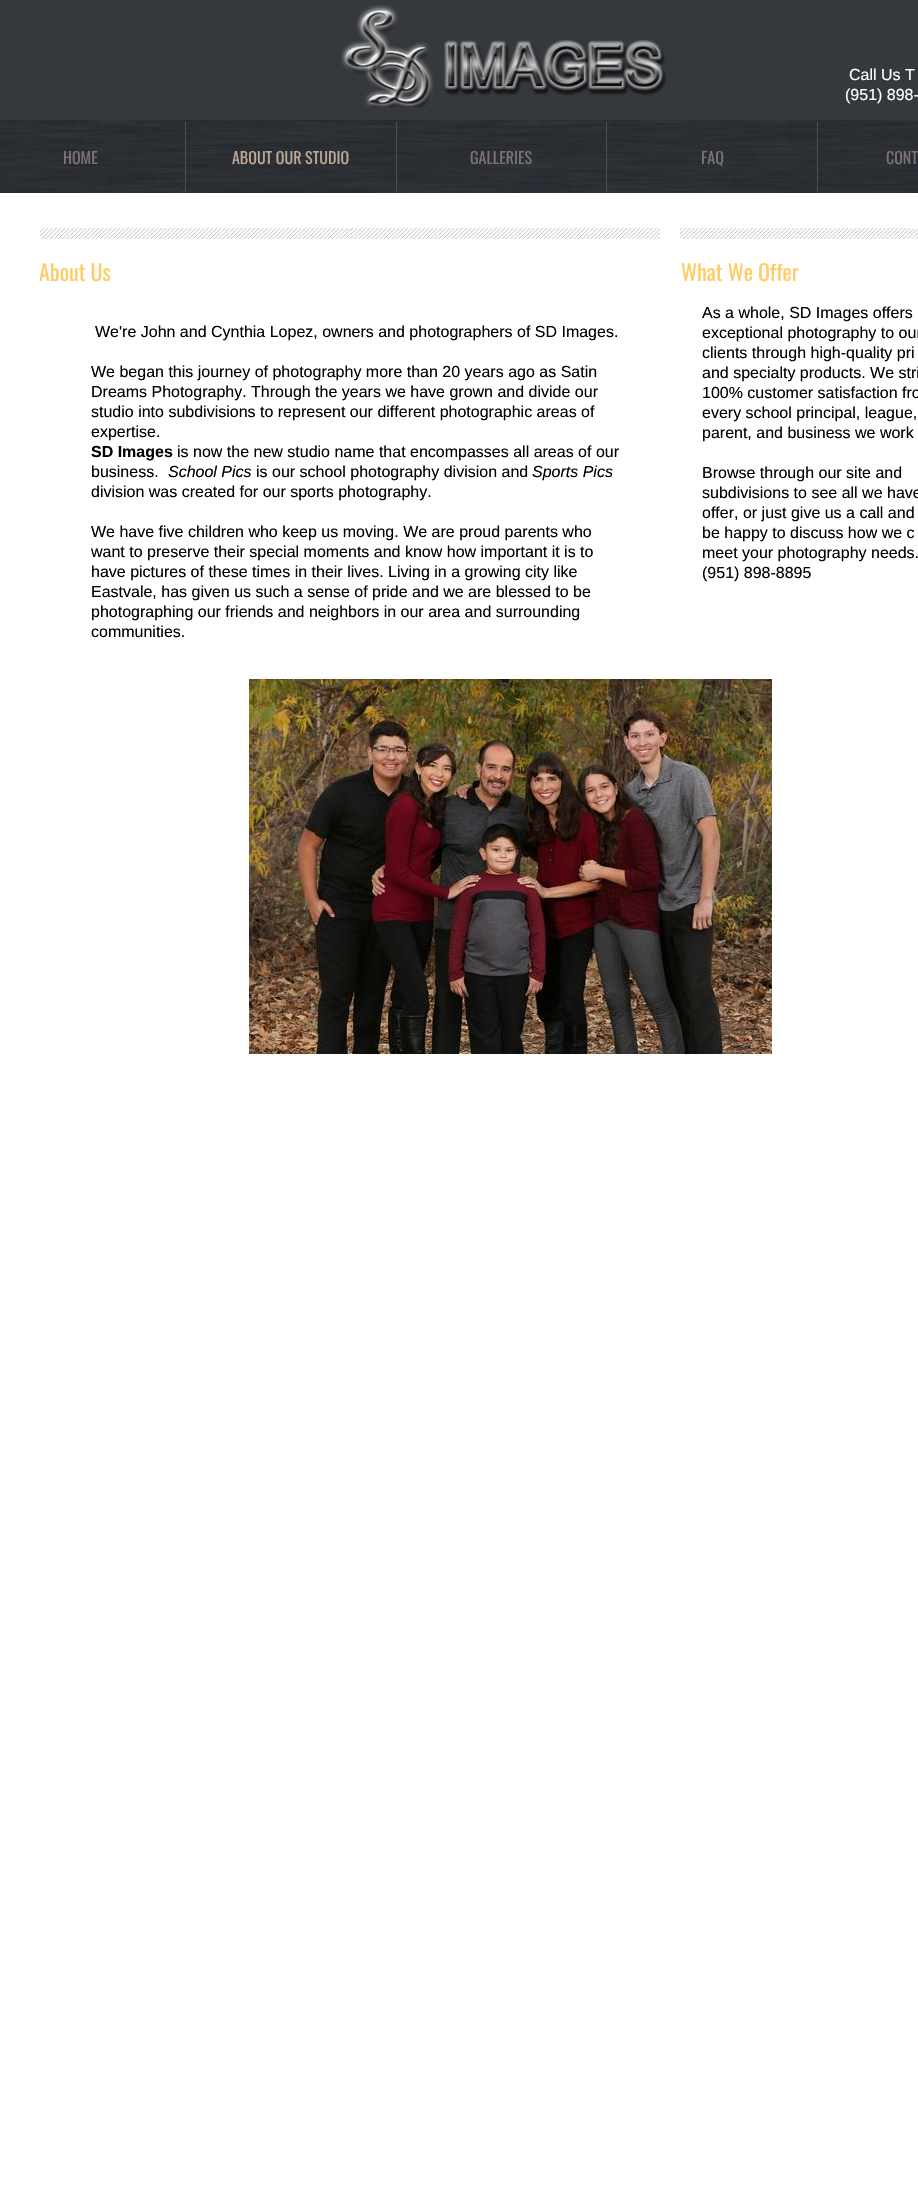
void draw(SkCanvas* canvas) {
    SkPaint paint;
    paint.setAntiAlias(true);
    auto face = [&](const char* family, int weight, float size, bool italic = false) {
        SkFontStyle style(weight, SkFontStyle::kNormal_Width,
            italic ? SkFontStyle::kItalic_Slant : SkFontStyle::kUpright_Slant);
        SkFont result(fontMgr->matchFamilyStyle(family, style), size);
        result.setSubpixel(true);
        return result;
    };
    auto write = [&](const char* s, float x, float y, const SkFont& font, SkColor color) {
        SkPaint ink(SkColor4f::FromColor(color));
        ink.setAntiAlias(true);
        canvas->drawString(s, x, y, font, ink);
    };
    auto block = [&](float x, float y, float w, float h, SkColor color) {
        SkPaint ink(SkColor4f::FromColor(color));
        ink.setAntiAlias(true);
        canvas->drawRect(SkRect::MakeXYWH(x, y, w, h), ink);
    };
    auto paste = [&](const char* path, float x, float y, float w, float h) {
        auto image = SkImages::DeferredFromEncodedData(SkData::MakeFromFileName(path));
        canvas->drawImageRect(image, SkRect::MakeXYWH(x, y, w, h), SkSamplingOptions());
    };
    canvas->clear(SkColorSetRGB(53, 56, 61));
    block(0, 193, 918, 2000, SK_ColorWHITE);
    paste("pic1.png", 341, 5, 326, 102);
    auto kFont1 = face("Liberation Sans", 400, 16);
    write("Call Us T", 849, 80, kFont1, SK_ColorWHITE);
    write("(951) 898-", 845, 100, kFont1, SK_ColorWHITE);
    paste("pic2.png", 0, 120, 918, 73);
    block(185, 122, 1, 70, SkColorSetRGB(82, 78, 76));
    auto kFont2 = face("Oswald", 400, 16);
    write("HOME", 63, 164, kFont2, SkColorSetRGB(124, 115, 114));
    block(396, 122, 1, 70, SkColorSetRGB(82, 78, 76));
    write("ABOUT OUR STUDIO", 232, 164, kFont2, SkColorSetRGB(190, 168, 152));
    block(606, 122, 1, 70, SkColorSetRGB(82, 78, 76));
    write("GALLERIES", 470, 164, kFont2, SkColorSetRGB(124, 115, 114));
    block(817, 122, 1, 70, SkColorSetRGB(82, 78, 76));
    write("FAQ", 701, 164, kFont2, SkColorSetRGB(124, 115, 114));
    write("CONT", 886, 164, kFont2, SkColorSetRGB(124, 115, 114));
    paste("pic3.png", 40, 228, 311, 11);
    paste("pic4.png", 351, 228, 309, 11);
    paste("pic5.png", 680, 228, 238, 11);
    auto kFont3 = face("Oswald", 400, 22);
    write("About Us", 39, 281, kFont3, SkColorSetRGB(255, 204, 102));
    write("What We Offer", 681, 281, kFont3, SkColorSetRGB(255, 204, 102));
    write("We're John and Cynthia Lopez, owners and photographers of SD Images.", 95, 337, kFont1, SK_ColorBLACK);
    write("We began this journey of photography more than 20 years ago as Satin", 91, 377, kFont1, SK_ColorBLACK);
    write("Dreams Photography. Through the years we have grown and divide our", 91, 397, kFont1, SK_ColorBLACK);
    write("studio into subdivisions to represent our different photographic areas of", 91, 417, kFont1, SK_ColorBLACK);
    write("expertise.", 91, 437, kFont1, SK_ColorBLACK);
    auto kFont4 = face("Liberation Sans", 700, 16);
    write("SD Images", 91, 457, kFont4, SK_ColorBLACK);
    write("is now the new studio name that encompasses all areas of our", 177, 457, kFont1, SK_ColorBLACK);
    write("business.", 91, 477, kFont1, SK_ColorBLACK);
    auto kFont5 = face("Liberation Sans", 400, 16, true);
    write("School Pics", 168, 477, kFont5, SK_ColorBLACK);
    write("is our school photography division and", 256, 477, kFont1, SK_ColorBLACK);
    write("Sports Pics", 532, 477, kFont5, SK_ColorBLACK);
    write("division was created for our sports photography.", 91, 497, kFont1, SK_ColorBLACK);
    write("We have five children who keep us moving. We are proud parents who", 91, 537, kFont1, SK_ColorBLACK);
    write("want to preserve their special moments and know how important it is to", 91, 557, kFont1, SK_ColorBLACK);
    write("have pictures of these times in their lives. Living in a growing city like", 91, 577, kFont1, SK_ColorBLACK);
    write("Eastvale, has given us such a sense of pride and we are blessed to be", 91, 597, kFont1, SK_ColorBLACK);
    write("photographing our friends and neighbors in our area and surrounding", 91, 617, kFont1, SK_ColorBLACK);
    write("communities.", 91, 637, kFont1, SK_ColorBLACK);
    write("As a whole, SD Images offers", 702, 318, kFont1, SK_ColorBLACK);
    write("exceptional photography to our", 702, 338, kFont1, SK_ColorBLACK);
    write("clients through high-quality pri", 702, 358, kFont1, SK_ColorBLACK);
    write("and specialty products. We stri", 702, 378, kFont1, SK_ColorBLACK);
    write("100% customer satisfaction fro", 702, 398, kFont1, SK_ColorBLACK);
    write("every school principal, league,", 702, 418, kFont1, SK_ColorBLACK);
    write("parent, and business we work", 702, 438, kFont1, SK_ColorBLACK);
    write("Browse through our site and", 702, 478, kFont1, SK_ColorBLACK);
    write("subdivisions to see all we have", 702, 498, kFont1, SK_ColorBLACK);
    write("offer, or just give us a call and", 702, 518, kFont1, SK_ColorBLACK);
    write("be happy to discuss how we c", 702, 538, kFont1, SK_ColorBLACK);
    write("meet your photography needs.", 702, 558, kFont1, SK_ColorBLACK);
    write("(951) 898-8895", 702, 578, kFont1, SK_ColorBLACK);
    paste("pic6.png", 249, 679, 523, 375);
}
